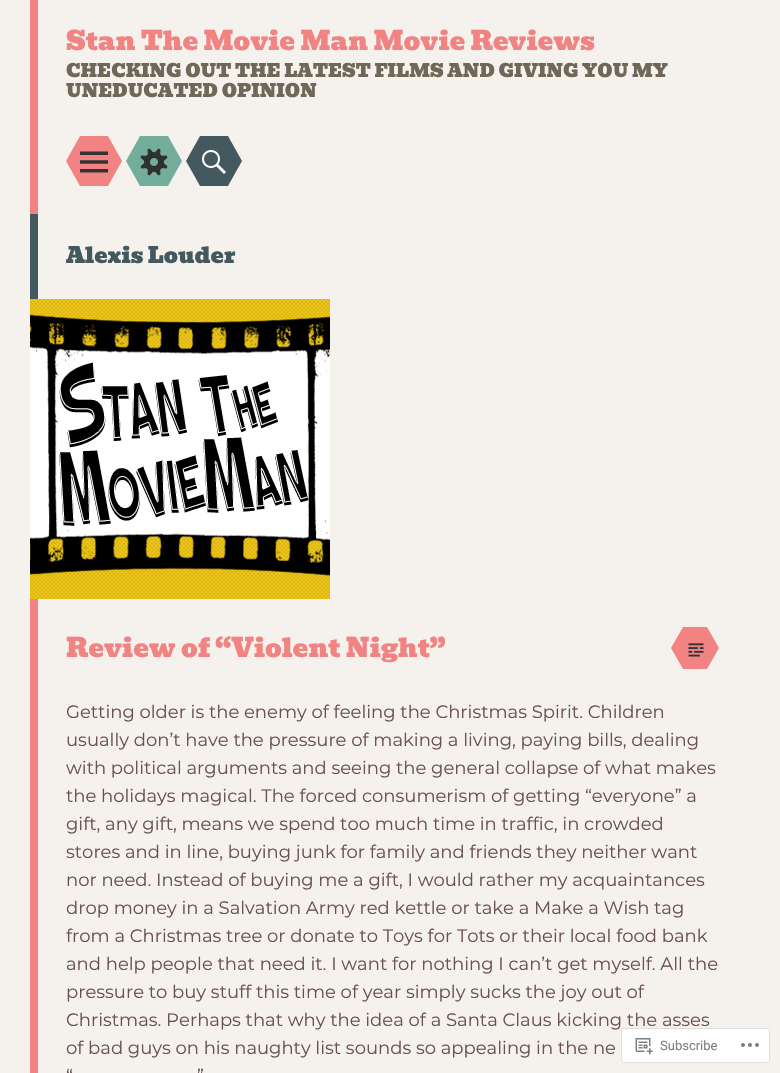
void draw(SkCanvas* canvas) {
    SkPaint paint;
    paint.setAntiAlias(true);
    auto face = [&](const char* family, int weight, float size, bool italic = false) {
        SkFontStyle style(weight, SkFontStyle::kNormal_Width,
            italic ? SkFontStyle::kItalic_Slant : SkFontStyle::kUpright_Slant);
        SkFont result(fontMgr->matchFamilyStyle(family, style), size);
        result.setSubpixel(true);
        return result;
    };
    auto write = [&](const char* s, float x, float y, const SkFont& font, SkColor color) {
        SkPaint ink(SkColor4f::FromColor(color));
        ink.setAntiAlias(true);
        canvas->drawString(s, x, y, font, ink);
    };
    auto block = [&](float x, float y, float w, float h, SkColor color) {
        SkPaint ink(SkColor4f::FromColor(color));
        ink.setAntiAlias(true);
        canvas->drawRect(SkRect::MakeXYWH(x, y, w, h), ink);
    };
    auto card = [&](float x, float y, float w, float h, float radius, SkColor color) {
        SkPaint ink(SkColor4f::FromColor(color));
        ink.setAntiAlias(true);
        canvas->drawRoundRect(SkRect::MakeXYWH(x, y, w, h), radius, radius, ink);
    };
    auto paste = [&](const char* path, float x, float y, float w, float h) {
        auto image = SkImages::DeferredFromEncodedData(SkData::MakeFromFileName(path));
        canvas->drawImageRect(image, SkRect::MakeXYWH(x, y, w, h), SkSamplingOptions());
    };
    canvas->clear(SkColorSetRGB(245, 242, 238));
    block(30, 0, 8, 214, SkColorSetRGB(241, 131, 131));
    auto kFont1 = face("Bevan", 400, 26);
    write("Stan The Movie Man Movie Reviews", 66, 50, kFont1, SkColorSetRGB(241, 131, 131));
    auto kFont2 = face("Bevan", 400, 18);
    write("CHECKING OUT THE LATEST FILMS AND GIVING YOU MY", 66, 77, kFont2, SkColorSetRGB(111, 103, 87));
    write("UNEDUCATED OPINION", 66, 97, kFont2, SkColorSetRGB(111, 103, 87));
    block(80, 136, 28, 50, SkColorSetRGB(241, 131, 131));
    paint.setColor(SkColorSetRGB(241, 131, 131));
    canvas->drawPath(SkPathBuilder().moveTo(108, 186).lineTo(108, 136).lineTo(122, 161).close().moveTo(80, 136).lineTo(80, 186).lineTo(66, 161).close().detach(), paint);
    paste("pic1.png", 80, 151, 28, 22);
    block(140, 136, 28, 50, SkColorSetRGB(115, 174, 157));
    paint.setColor(SkColorSetRGB(115, 174, 157));
    canvas->drawPath(SkPathBuilder().moveTo(168, 186).lineTo(168, 136).lineTo(182, 161).close().moveTo(140, 136).lineTo(140, 186).lineTo(126, 161).close().detach(), paint);
    paste("pic2.png", 140, 148, 28, 28);
    block(200, 136, 28, 50, SkColorSetRGB(67, 88, 95));
    paint.setColor(SkColorSetRGB(67, 88, 95));
    canvas->drawPath(SkPathBuilder().moveTo(228, 186).lineTo(228, 136).lineTo(242, 161).close().moveTo(200, 136).lineTo(200, 186).lineTo(186, 161).close().detach(), paint);
    paste("pic3.png", 202, 150, 24, 24);
    block(30, 214, 8, 85, SkColorSetRGB(67, 88, 95));
    auto kFont3 = face("Bevan", 400, 22);
    write("Alexis Louder", 66, 263, kFont3, SkColorSetRGB(67, 88, 95));
    paste("pic4.png", 30, 299, 300, 300);
    block(30, 599, 8, 474, SkColorSetRGB(241, 131, 131));
    write("Review of “Violent Night”", 66, 657, kFont1, SkColorSetRGB(241, 131, 131));
    block(683, 627, 24, 42, SkColorSetRGB(241, 131, 131));
    paint.setColor(SkColorSetRGB(241, 131, 131));
    canvas->drawPath(SkPathBuilder().moveTo(683, 627).lineTo(683, 669).lineTo(671, 648).close().detach(), paint);
    paste("pic5.png", 688, 643, 16, 14);
    canvas->drawPath(SkPathBuilder().moveTo(707, 669).lineTo(707, 627).lineTo(719, 648).close().detach(), paint);
    auto kFont4 = face("Montserrat", 400, 18);
    write("Getting older is the enemy of feeling the Christmas Spirit. Children", 66, 718, kFont4, SkColorSetRGB(106, 82, 74));
    write("usually don’t have the pressure of making a living, paying bills, dealing", 66, 746, kFont4, SkColorSetRGB(106, 82, 74));
    write("with political arguments and seeing the general collapse of what makes", 66, 774, kFont4, SkColorSetRGB(106, 82, 74));
    write("the holidays magical. The forced consumerism of getting “everyone” a", 66, 802, kFont4, SkColorSetRGB(106, 82, 74));
    write("gift, any gift, means we spend too much time in traffic, in crowded", 66, 830, kFont4, SkColorSetRGB(106, 82, 74));
    write("stores and in line, buying junk for family and friends they neither want", 66, 858, kFont4, SkColorSetRGB(106, 82, 74));
    write("nor need. Instead of buying me a gift, I would rather my acquaintances", 66, 886, kFont4, SkColorSetRGB(106, 82, 74));
    write("drop money in a Salvation Army red kettle or take a Make a Wish tag", 66, 914, kFont4, SkColorSetRGB(106, 82, 74));
    write("from a Christmas tree or donate to Toys for Tots or their local food bank", 66, 942, kFont4, SkColorSetRGB(106, 82, 74));
    write("and help people that need it. I want for nothing I can’t get myself. All the", 66, 970, kFont4, SkColorSetRGB(106, 82, 74));
    write("pressure to buy stuff this time of year simply sucks the joy out of", 66, 998, kFont4, SkColorSetRGB(106, 82, 74));
    write("Christmas. Perhaps that why the idea of a Santa Claus kicking the asses", 66, 1026, kFont4, SkColorSetRGB(106, 82, 74));
    write("of bad guys on his naughty list sounds so appealing in the ne", 66, 1054, kFont4, SkColorSetRGB(106, 82, 74));
    write("“", 66, 1082, kFont4, SkColorSetRGB(106, 82, 74));
    write("”", 197, 1082, kFont4, SkColorSetRGB(106, 82, 74));
    card(621, 1028, 149, 35, 3, SkColorSetARGB(250, 255, 255, 255));
    paint.setStyle(SkPaint::kStroke_Style);
    paint.setStrokeWidth(1);
    paint.setColor(SkColorSetARGB(250, 220, 220, 222));
    canvas->drawRoundRect(SkRect::MakeXYWH(621.5f, 1028.5f, 148, 34), 2.5f, 2.5f, paint);
    paste("pic6.png", 635, 1038, 18, 17);
    auto kFont5 = face("Roboto", 400, 13);
    write("Subscribe", 660, 1050, kFont5, SkColorSetRGB(123, 127, 132));
    paste("pic7.png", 741, 1043, 18, 4);
}
